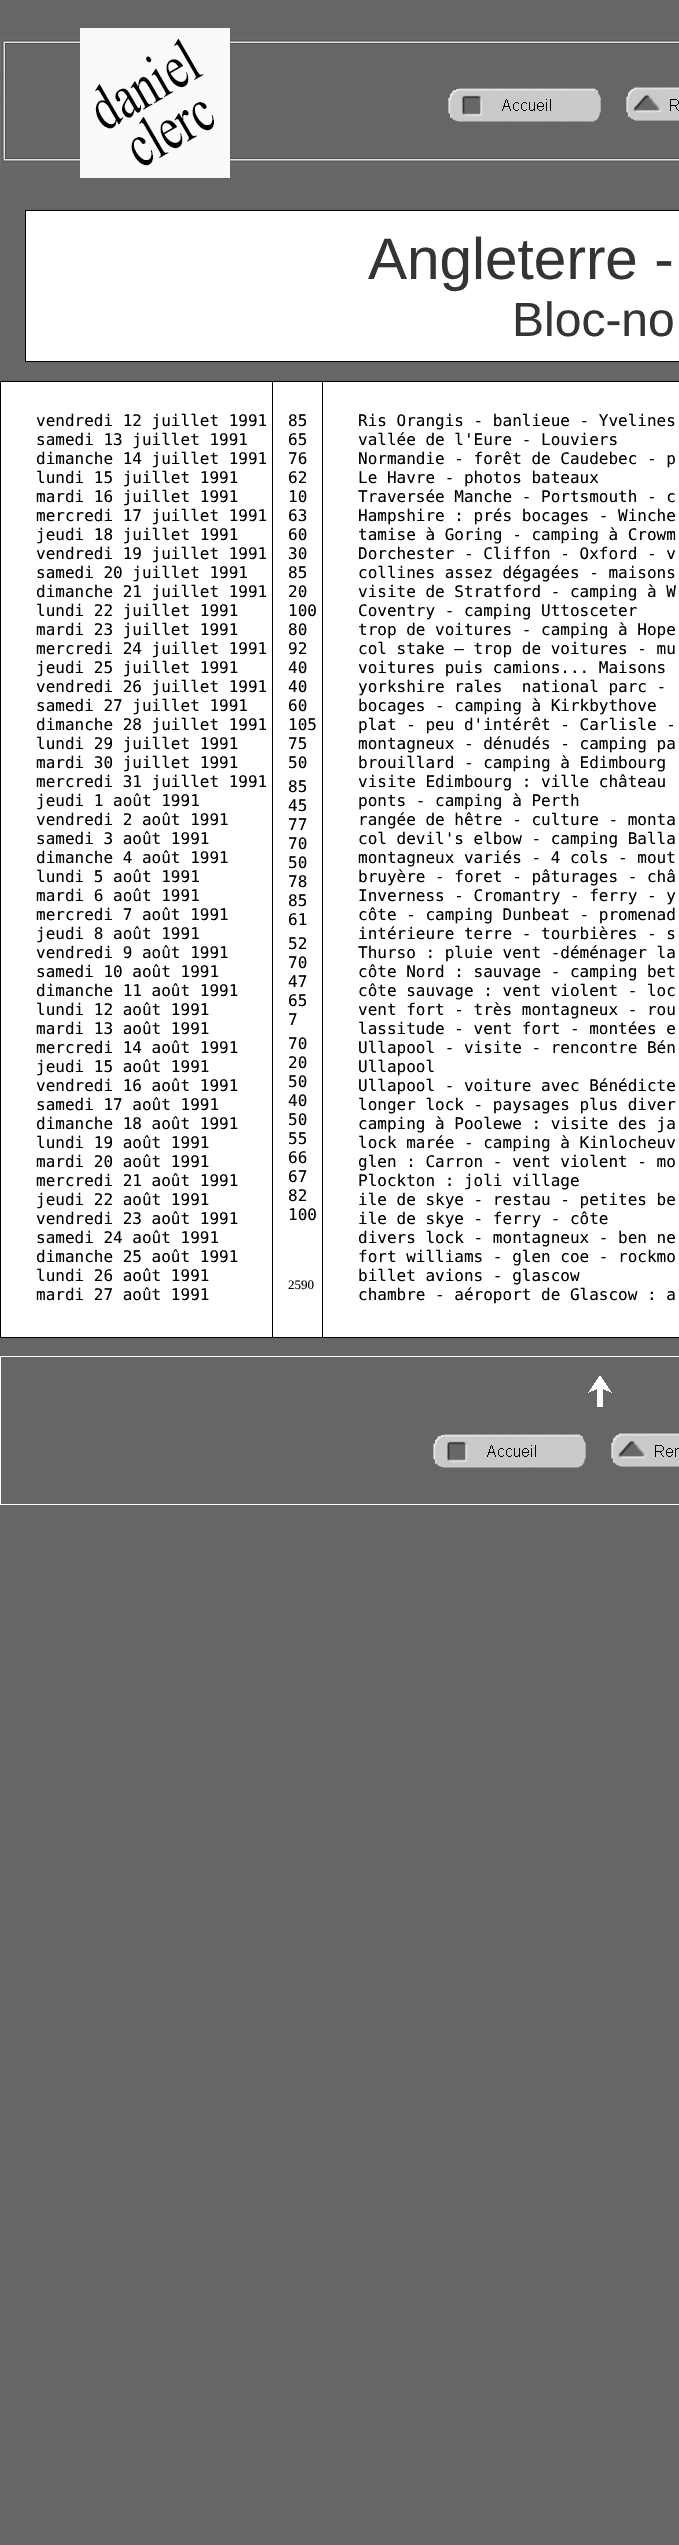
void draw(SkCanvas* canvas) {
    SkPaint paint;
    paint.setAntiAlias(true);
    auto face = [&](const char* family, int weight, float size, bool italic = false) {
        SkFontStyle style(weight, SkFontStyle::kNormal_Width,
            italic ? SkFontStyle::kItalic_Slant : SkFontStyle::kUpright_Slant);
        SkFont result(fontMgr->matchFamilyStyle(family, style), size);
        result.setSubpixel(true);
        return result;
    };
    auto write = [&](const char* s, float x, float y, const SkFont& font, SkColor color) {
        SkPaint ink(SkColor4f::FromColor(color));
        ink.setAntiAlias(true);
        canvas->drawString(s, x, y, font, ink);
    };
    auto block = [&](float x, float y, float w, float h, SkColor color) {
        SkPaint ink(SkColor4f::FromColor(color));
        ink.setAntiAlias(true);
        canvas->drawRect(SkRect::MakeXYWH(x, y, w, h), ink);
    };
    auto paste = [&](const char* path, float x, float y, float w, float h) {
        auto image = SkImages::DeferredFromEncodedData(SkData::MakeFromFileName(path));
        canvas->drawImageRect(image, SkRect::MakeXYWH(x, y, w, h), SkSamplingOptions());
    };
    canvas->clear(SkColorSetRGB(102, 102, 102));
    paste("pic1.png", 0, 38, 679, 127);
    paste("pic2.png", 80, 28, 150, 150);
    paste("pic3.png", 448, 88, 153, 34);
    paste("pic4.png", 626, 87, 53, 34);
    block(26, 211, 653, 150, SK_ColorWHITE);
    block(25, 210, 654, 1, SK_ColorBLACK);
    block(25, 361, 654, 1, SK_ColorBLACK);
    block(25, 210, 1, 152, SK_ColorBLACK);
    auto kFont1 = face("Liberation Sans", 400, 58.5f);
    write("Angleterre -", 368, 279, kFont1, SkColorSetRGB(52, 52, 52));
    auto kFont2 = face("Liberation Sans", 400, 48);
    write("Bloc-no", 512, 336, kFont2, SkColorSetRGB(52, 52, 52));
    block(1, 382, 678, 955, SK_ColorWHITE);
    block(0, 381, 679, 1, SK_ColorBLACK);
    block(0, 1337, 679, 1, SK_ColorBLACK);
    block(0, 381, 1, 957, SK_ColorBLACK);
    auto kFont3 = face("DejaVu Sans Mono", 400, 16);
    write("vendredi 12 juillet 1991", 36, 426, kFont3, SK_ColorBLACK);
    write("samedi 13 juillet 1991", 36, 445, kFont3, SK_ColorBLACK);
    write("dimanche 14 juillet 1991", 36, 464, kFont3, SK_ColorBLACK);
    write("lundi 15 juillet 1991", 36, 483, kFont3, SK_ColorBLACK);
    write("mardi 16 juillet 1991", 36, 502, kFont3, SK_ColorBLACK);
    write("mercredi 17 juillet 1991", 36, 521, kFont3, SK_ColorBLACK);
    write("jeudi 18 juillet 1991", 36, 540, kFont3, SK_ColorBLACK);
    write("vendredi 19 juillet 1991", 36, 559, kFont3, SK_ColorBLACK);
    write("samedi 20 juillet 1991", 36, 578, kFont3, SK_ColorBLACK);
    write("dimanche 21 juillet 1991", 36, 597, kFont3, SK_ColorBLACK);
    write("lundi 22 juillet 1991", 36, 616, kFont3, SK_ColorBLACK);
    write("mardi 23 juillet 1991", 36, 635, kFont3, SK_ColorBLACK);
    write("mercredi 24 juillet 1991", 36, 654, kFont3, SK_ColorBLACK);
    write("jeudi 25 juillet 1991", 36, 673, kFont3, SK_ColorBLACK);
    write("vendredi 26 juillet 1991", 36, 692, kFont3, SK_ColorBLACK);
    write("samedi 27 juillet 1991", 36, 711, kFont3, SK_ColorBLACK);
    write("dimanche 28 juillet 1991", 36, 730, kFont3, SK_ColorBLACK);
    write("lundi 29 juillet 1991", 36, 749, kFont3, SK_ColorBLACK);
    write("mardi 30 juillet 1991", 36, 768, kFont3, SK_ColorBLACK);
    write("mercredi 31 juillet 1991", 36, 787, kFont3, SK_ColorBLACK);
    write("jeudi 1 août 1991", 36, 806, kFont3, SK_ColorBLACK);
    write("vendredi 2 août 1991", 36, 825, kFont3, SK_ColorBLACK);
    write("samedi 3 août 1991", 36, 844, kFont3, SK_ColorBLACK);
    write("dimanche 4 août 1991", 36, 863, kFont3, SK_ColorBLACK);
    write("lundi 5 août 1991", 36, 882, kFont3, SK_ColorBLACK);
    write("mardi 6 août 1991", 36, 901, kFont3, SK_ColorBLACK);
    write("mercredi 7 août 1991", 36, 920, kFont3, SK_ColorBLACK);
    write("jeudi 8 août 1991", 36, 939, kFont3, SK_ColorBLACK);
    write("vendredi 9 août 1991", 36, 958, kFont3, SK_ColorBLACK);
    write("samedi 10 août 1991", 36, 977, kFont3, SK_ColorBLACK);
    write("dimanche 11 août 1991", 36, 996, kFont3, SK_ColorBLACK);
    write("lundi 12 août 1991", 36, 1015, kFont3, SK_ColorBLACK);
    write("mardi 13 août 1991", 36, 1034, kFont3, SK_ColorBLACK);
    write("mercredi 14 août 1991", 36, 1053, kFont3, SK_ColorBLACK);
    write("jeudi 15 août 1991", 36, 1072, kFont3, SK_ColorBLACK);
    write("vendredi 16 août 1991", 36, 1091, kFont3, SK_ColorBLACK);
    write("samedi 17 août 1991", 36, 1110, kFont3, SK_ColorBLACK);
    write("dimanche 18 août 1991", 36, 1129, kFont3, SK_ColorBLACK);
    write("lundi 19 août 1991", 36, 1148, kFont3, SK_ColorBLACK);
    write("mardi 20 août 1991", 36, 1167, kFont3, SK_ColorBLACK);
    write("mercredi 21 août 1991", 36, 1186, kFont3, SK_ColorBLACK);
    write("jeudi 22 août 1991", 36, 1205, kFont3, SK_ColorBLACK);
    write("vendredi 23 août 1991", 36, 1224, kFont3, SK_ColorBLACK);
    write("samedi 24 août 1991", 36, 1243, kFont3, SK_ColorBLACK);
    write("dimanche 25 août 1991", 36, 1262, kFont3, SK_ColorBLACK);
    write("lundi 26 août 1991", 36, 1281, kFont3, SK_ColorBLACK);
    write("mardi 27 août 1991", 36, 1300, kFont3, SK_ColorBLACK);
    block(272, 381, 1, 957, SK_ColorBLACK);
    write("85", 288, 426, kFont3, SK_ColorBLACK);
    write("65", 288, 445, kFont3, SK_ColorBLACK);
    write("76", 288, 464, kFont3, SK_ColorBLACK);
    write("62", 288, 483, kFont3, SK_ColorBLACK);
    write("10", 288, 502, kFont3, SK_ColorBLACK);
    write("63", 288, 521, kFont3, SK_ColorBLACK);
    write("60", 288, 540, kFont3, SK_ColorBLACK);
    write("30", 288, 559, kFont3, SK_ColorBLACK);
    write("85", 288, 578, kFont3, SK_ColorBLACK);
    write("20", 288, 597, kFont3, SK_ColorBLACK);
    write("100", 288, 616, kFont3, SK_ColorBLACK);
    write("80", 288, 635, kFont3, SK_ColorBLACK);
    write("92", 288, 654, kFont3, SK_ColorBLACK);
    write("40", 288, 673, kFont3, SK_ColorBLACK);
    write("40", 288, 692, kFont3, SK_ColorBLACK);
    write("60", 288, 711, kFont3, SK_ColorBLACK);
    write("105", 288, 730, kFont3, SK_ColorBLACK);
    write("75", 288, 749, kFont3, SK_ColorBLACK);
    write("50", 288, 768, kFont3, SK_ColorBLACK);
    write("85", 288, 792, kFont3, SK_ColorBLACK);
    write("45", 288, 811, kFont3, SK_ColorBLACK);
    write("77", 288, 830, kFont3, SK_ColorBLACK);
    write("70", 288, 849, kFont3, SK_ColorBLACK);
    write("50", 288, 868, kFont3, SK_ColorBLACK);
    write("78", 288, 887, kFont3, SK_ColorBLACK);
    write("85", 288, 906, kFont3, SK_ColorBLACK);
    write("61", 288, 925, kFont3, SK_ColorBLACK);
    write("52", 288, 949, kFont3, SK_ColorBLACK);
    write("70", 288, 968, kFont3, SK_ColorBLACK);
    write("47", 288, 987, kFont3, SK_ColorBLACK);
    write("65", 288, 1006, kFont3, SK_ColorBLACK);
    write("7", 288, 1025, kFont3, SK_ColorBLACK);
    write("70", 288, 1049, kFont3, SK_ColorBLACK);
    write("20", 288, 1068, kFont3, SK_ColorBLACK);
    write("50", 288, 1087, kFont3, SK_ColorBLACK);
    write("40", 288, 1106, kFont3, SK_ColorBLACK);
    write("50", 288, 1125, kFont3, SK_ColorBLACK);
    write("55", 288, 1144, kFont3, SK_ColorBLACK);
    write("66", 288, 1163, kFont3, SK_ColorBLACK);
    write("67", 288, 1182, kFont3, SK_ColorBLACK);
    write("82", 288, 1201, kFont3, SK_ColorBLACK);
    write("100", 288, 1220, kFont3, SK_ColorBLACK);
    auto kFont4 = face("Liberation Serif", 400, 13);
    write("2590", 288, 1289, kFont4, SK_ColorBLACK);
    block(322, 381, 1, 957, SK_ColorBLACK);
    write("Ris Orangis - banlieue - Yvelines", 358, 426, kFont3, SK_ColorBLACK);
    write("vallée de l'Eure - Louviers", 358, 445, kFont3, SK_ColorBLACK);
    write("Normandie - forêt de Caudebec - p", 358, 464, kFont3, SK_ColorBLACK);
    write("Le Havre - photos bateaux", 358, 483, kFont3, SK_ColorBLACK);
    write("Traversée Manche - Portsmouth - c", 358, 502, kFont3, SK_ColorBLACK);
    write("Hampshire : prés bocages - Winche", 358, 521, kFont3, SK_ColorBLACK);
    write("tamise à Goring - camping à Crowm", 358, 540, kFont3, SK_ColorBLACK);
    write("Dorchester - Cliffon - Oxford - v", 358, 559, kFont3, SK_ColorBLACK);
    write("collines assez dégagées - maisons", 358, 578, kFont3, SK_ColorBLACK);
    write("visite de Stratford - camping à W", 358, 597, kFont3, SK_ColorBLACK);
    write("Coventry - camping Uttosceter", 358, 616, kFont3, SK_ColorBLACK);
    write("trop de voitures - camping à Hope", 358, 635, kFont3, SK_ColorBLACK);
    write("col stake – trop de voitures - mu", 358, 654, kFont3, SK_ColorBLACK);
    write("voitures puis camions... Maisons", 358, 673, kFont3, SK_ColorBLACK);
    write("yorkshire rales  national parc -", 358, 692, kFont3, SK_ColorBLACK);
    write("bocages - camping à Kirkbythove", 358, 711, kFont3, SK_ColorBLACK);
    write("plat - peu d'intérêt - Carlisle -", 358, 730, kFont3, SK_ColorBLACK);
    write("montagneux - dénudés - camping pa", 358, 749, kFont3, SK_ColorBLACK);
    write("brouillard - camping à Edimbourg", 358, 768, kFont3, SK_ColorBLACK);
    write("visite Edimbourg : ville château", 358, 787, kFont3, SK_ColorBLACK);
    write("ponts - camping à Perth", 358, 806, kFont3, SK_ColorBLACK);
    write("rangée de hêtre - culture - monta", 358, 825, kFont3, SK_ColorBLACK);
    write("col devil's elbow - camping Balla", 358, 844, kFont3, SK_ColorBLACK);
    write("montagneux variés - 4 cols - mout", 358, 863, kFont3, SK_ColorBLACK);
    write("bruyère - foret - pâturages - châ", 358, 882, kFont3, SK_ColorBLACK);
    write("Inverness - Cromantry - ferry - y", 358, 901, kFont3, SK_ColorBLACK);
    write("côte - camping Dunbeat - promenad", 358, 920, kFont3, SK_ColorBLACK);
    write("intérieure terre - tourbières - s", 358, 939, kFont3, SK_ColorBLACK);
    write("Thurso : pluie vent -déménager la", 358, 958, kFont3, SK_ColorBLACK);
    write("côte Nord : sauvage - camping bet", 358, 977, kFont3, SK_ColorBLACK);
    write("côte sauvage : vent violent - loc", 358, 996, kFont3, SK_ColorBLACK);
    write("vent fort - très montagneux - rou", 358, 1015, kFont3, SK_ColorBLACK);
    write("lassitude - vent fort - montées e", 358, 1034, kFont3, SK_ColorBLACK);
    write("Ullapool - visite - rencontre Bén", 358, 1053, kFont3, SK_ColorBLACK);
    write("Ullapool", 358, 1072, kFont3, SK_ColorBLACK);
    write("Ullapool - voiture avec Bénédicte", 358, 1091, kFont3, SK_ColorBLACK);
    write("longer lock - paysages plus diver", 358, 1110, kFont3, SK_ColorBLACK);
    write("camping à Poolewe : visite des ja", 358, 1129, kFont3, SK_ColorBLACK);
    write("lock marée - camping à Kinlocheuv", 358, 1148, kFont3, SK_ColorBLACK);
    write("glen : Carron - vent violent - mo", 358, 1167, kFont3, SK_ColorBLACK);
    write("Plockton : joli village", 358, 1186, kFont3, SK_ColorBLACK);
    write("ile de skye - restau - petites be", 358, 1205, kFont3, SK_ColorBLACK);
    write("ile de skye - ferry - côte", 358, 1224, kFont3, SK_ColorBLACK);
    write("divers lock - montagneux - ben ne", 358, 1243, kFont3, SK_ColorBLACK);
    write("fort williams - glen coe - rockmo", 358, 1262, kFont3, SK_ColorBLACK);
    write("billet avions - glascow", 358, 1281, kFont3, SK_ColorBLACK);
    write("chambre - aéroport de Glascow : a", 358, 1300, kFont3, SK_ColorBLACK);
    block(0, 1356, 679, 1, SK_ColorWHITE);
    block(0, 1504, 679, 1, SK_ColorWHITE);
    block(0, 1356, 1, 149, SK_ColorWHITE);
    paste("pic5.png", 588, 1376, 24, 31);
    paste("pic3.png", 433, 1434, 153, 34);
    paste("pic6.png", 611, 1433, 68, 34);
}
